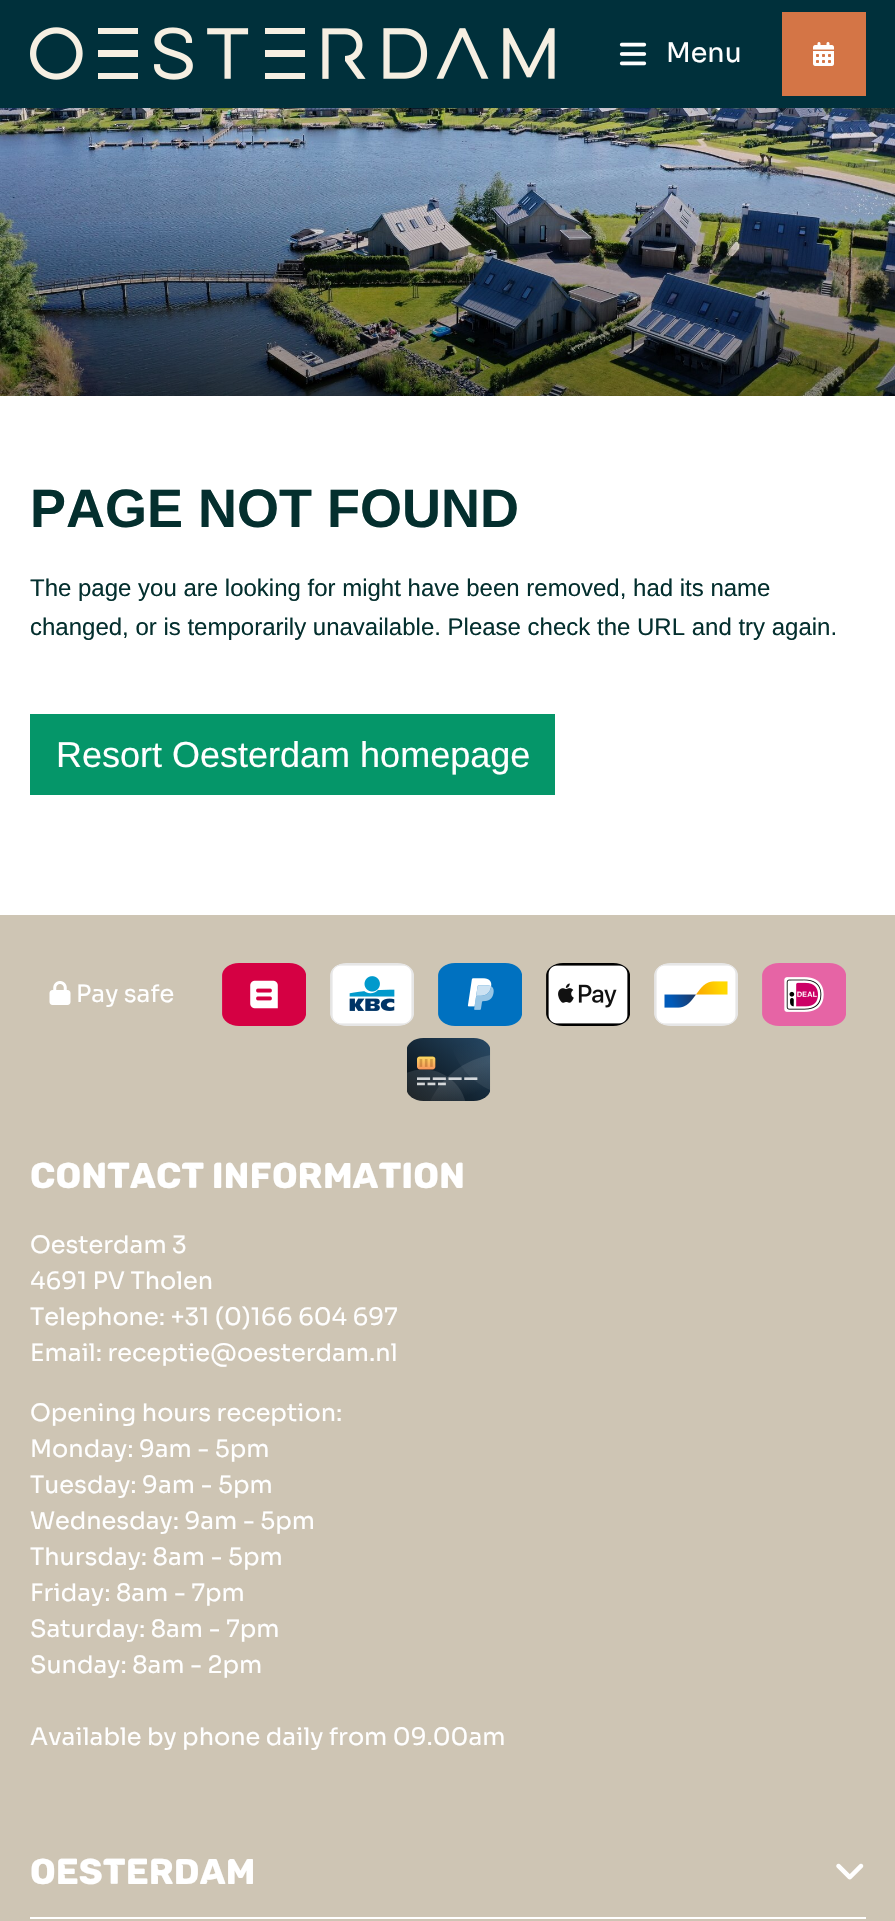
void draw(SkCanvas* canvas) {
    SkPaint paint;
    paint.setAntiAlias(true);
    auto face = [&](const char* family, int weight, float size, bool italic = false) {
        SkFontStyle style(weight, SkFontStyle::kNormal_Width,
            italic ? SkFontStyle::kItalic_Slant : SkFontStyle::kUpright_Slant);
        SkFont result(fontMgr->matchFamilyStyle(family, style), size);
        result.setSubpixel(true);
        return result;
    };
    auto write = [&](const char* s, float x, float y, const SkFont& font, SkColor color) {
        SkPaint ink(SkColor4f::FromColor(color));
        ink.setAntiAlias(true);
        canvas->drawString(s, x, y, font, ink);
    };
    auto block = [&](float x, float y, float w, float h, SkColor color) {
        SkPaint ink(SkColor4f::FromColor(color));
        ink.setAntiAlias(true);
        canvas->drawRect(SkRect::MakeXYWH(x, y, w, h), ink);
    };
    auto paste = [&](const char* path, float x, float y, float w, float h) {
        auto image = SkImages::DeferredFromEncodedData(SkData::MakeFromFileName(path));
        canvas->drawImageRect(image, SkRect::MakeXYWH(x, y, w, h), SkSamplingOptions());
    };
    canvas->clear(SK_ColorWHITE);
    block(0, 0, 895, 108, SkColorSetRGB(0, 48, 59));
    paste("pic1.png", 30, 27, 525, 53);
    paste("pic2.png", 619, 42, 28, 24);
    auto kFont1 = face("Sora", 400, 27);
    write("Menu", 666, 62, kFont1, SK_ColorWHITE);
    block(782, 12, 84, 84, SkColorSetRGB(212, 117, 70));
    paste("pic3.png", 813, 42, 21, 24);
    paste("pic4.png", 0, 108, 895, 288);
    auto kFont2 = face("Liberation Sans", 700, 54);
    write("PAGE NOT FOUND", 30, 527, kFont2, SkColorSetRGB(4, 47, 46));
    auto kFont3 = face("Liberation Sans", 400, 24);
    write("The page you are looking for might have been removed, had its name", 30, 596, kFont3, SkColorSetRGB(4, 47, 46));
    write("changed, or is temporarily unavailable. Please check the URL and try again.", 30, 635, kFont3, SkColorSetRGB(4, 47, 46));
    block(30, 714, 525, 81, SkColorSetRGB(5, 150, 105));
    auto kFont4 = face("Liberation Sans", 400, 36);
    write("Resort Oesterdam homepage", 56, 767, kFont4, SK_ColorWHITE);
    block(0, 915, 895, 1006, SkColorSetRGB(206, 197, 180));
    paste("pic5.png", 49, 981, 22, 24);
    auto kFont5 = face("Sora", 400, 24);
    write("Pay safe", 76, 1002, kFont5, SK_ColorWHITE);
    paste("pic6.png", 222, 963, 84, 63);
    paste("pic7.png", 330, 963, 84, 63);
    paste("pic8.png", 438, 963, 84, 63);
    paste("pic9.png", 546, 963, 84, 63);
    paste("pic10.png", 654, 963, 84, 63);
    paste("pic11.png", 762, 963, 84, 63);
    paste("pic12.png", 407, 1038, 84, 63);
    auto kFont6 = face("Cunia", 700, 36);
    write("CONTACT INFORMATION", 30, 1188, kFont6, SK_ColorWHITE);
    write("Oesterdam 3", 30, 1253, kFont5, SK_ColorWHITE);
    write("4691 PV Tholen", 30, 1289, kFont5, SK_ColorWHITE);
    write("Telephone: +31 (0)166 604 697", 30, 1325, kFont5, SK_ColorWHITE);
    write("Email: receptie@oesterdam.nl", 30, 1361, kFont5, SK_ColorWHITE);
    write("Opening hours reception:", 30, 1421, kFont5, SK_ColorWHITE);
    write("Monday: 9am - 5pm", 30, 1457, kFont5, SK_ColorWHITE);
    write("Tuesday: 9am - 5pm", 30, 1493, kFont5, SK_ColorWHITE);
    write("Wednesday: 9am - 5pm", 30, 1529, kFont5, SK_ColorWHITE);
    write("Thursday: 8am - 5pm", 30, 1565, kFont5, SK_ColorWHITE);
    write("Friday: 8am - 7pm", 30, 1601, kFont5, SK_ColorWHITE);
    write("Saturday: 8am - 7pm", 30, 1637, kFont5, SK_ColorWHITE);
    write("Sunday: 8am - 2pm", 30, 1673, kFont5, SK_ColorWHITE);
    write("Available by phone daily from 09.00am", 30, 1745, kFont5, SK_ColorWHITE);
    block(30, 1917, 836, 2, SK_ColorWHITE);
    write("OESTERDAM", 30, 1884, kFont6, SK_ColorWHITE);
    paste("pic13.png", 836, 1863, 28, 17);
}
